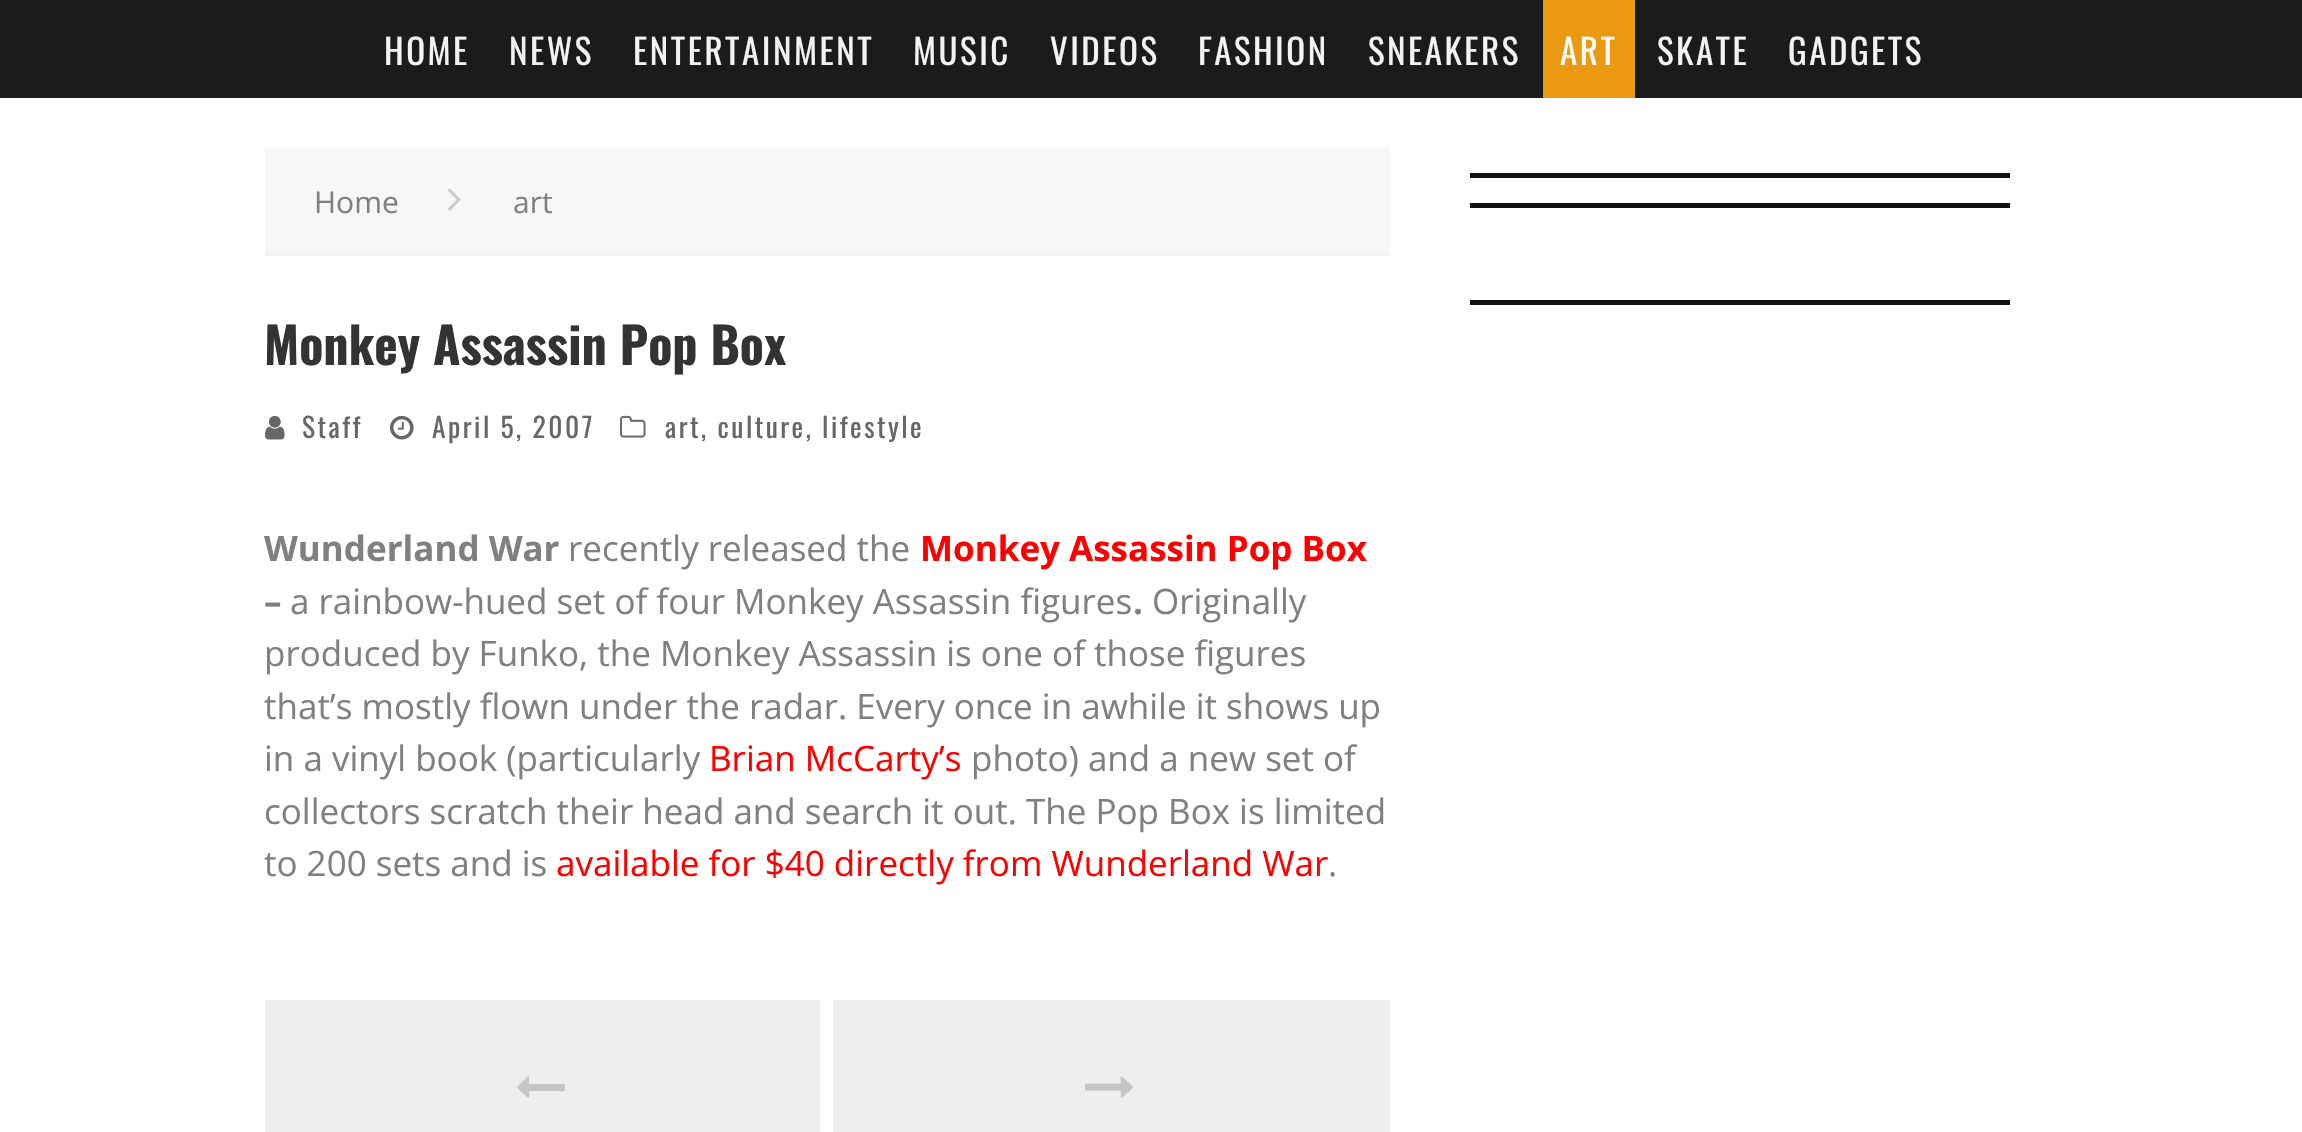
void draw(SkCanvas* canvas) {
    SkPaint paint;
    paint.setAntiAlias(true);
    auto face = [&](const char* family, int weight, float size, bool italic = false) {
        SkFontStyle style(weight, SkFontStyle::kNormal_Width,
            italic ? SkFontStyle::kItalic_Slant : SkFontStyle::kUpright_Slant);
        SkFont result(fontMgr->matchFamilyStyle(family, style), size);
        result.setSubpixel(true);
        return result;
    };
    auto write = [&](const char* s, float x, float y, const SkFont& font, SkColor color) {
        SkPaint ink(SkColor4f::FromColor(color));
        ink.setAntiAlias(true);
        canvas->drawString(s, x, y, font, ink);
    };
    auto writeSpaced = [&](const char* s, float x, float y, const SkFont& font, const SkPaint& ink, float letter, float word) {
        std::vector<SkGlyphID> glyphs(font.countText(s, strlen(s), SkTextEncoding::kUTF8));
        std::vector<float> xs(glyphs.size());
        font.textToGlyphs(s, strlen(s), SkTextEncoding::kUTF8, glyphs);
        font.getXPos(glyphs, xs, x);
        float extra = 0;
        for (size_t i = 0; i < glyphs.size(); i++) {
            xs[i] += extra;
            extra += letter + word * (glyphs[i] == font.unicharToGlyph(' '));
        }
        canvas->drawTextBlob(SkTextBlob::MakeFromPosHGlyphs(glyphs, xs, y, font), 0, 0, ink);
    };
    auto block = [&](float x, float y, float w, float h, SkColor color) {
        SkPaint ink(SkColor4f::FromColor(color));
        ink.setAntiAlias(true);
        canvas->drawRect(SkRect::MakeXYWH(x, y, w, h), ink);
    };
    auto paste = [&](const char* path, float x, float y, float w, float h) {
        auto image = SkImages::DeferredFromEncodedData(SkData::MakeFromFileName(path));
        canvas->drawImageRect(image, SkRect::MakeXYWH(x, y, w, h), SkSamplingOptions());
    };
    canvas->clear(SK_ColorWHITE);
    block(0, 0, 2302, 98, SkColorSetRGB(27, 27, 27));
    auto kFont1 = face("Oswald", 400, 35);
    paint.setColor(SkColorSetRGB(242, 242, 242));
    writeSpaced("HOME", 384, 65, kFont1, paint, 2.5f, 0);
    writeSpaced("NEWS", 509, 65, kFont1, paint, 2.5f, 0);
    writeSpaced("ENTERTAINMENT", 633, 65, kFont1, paint, 2.5f, 0);
    writeSpaced("MUSIC", 913, 65, kFont1, paint, 2.5f, 0);
    writeSpaced("VIDEOS", 1050, 65, kFont1, paint, 2.5f, 0);
    writeSpaced("FASHION", 1198, 65, kFont1, paint, 2.5f, 0);
    writeSpaced("SNEAKERS", 1368, 65, kFont1, paint, 2.5f, 0);
    block(1543, 0, 92, 98, SkColorSetRGB(235, 152, 18));
    paint.setColor(SkColorSetRGB(250, 250, 250));
    writeSpaced("ART", 1560, 65, kFont1, paint, 2.5f, 0);
    paint.setColor(SkColorSetRGB(242, 242, 242));
    writeSpaced("SKATE", 1657, 65, kFont1, paint, 2.5f, 0);
    writeSpaced("GADGETS", 1788, 65, kFont1, paint, 2.5f, 0);
    block(265, 148, 1125, 105, SkColorSetRGB(247, 247, 247));
    block(265, 253, 1125, 3, SkColorSetRGB(243, 243, 243));
    auto kFont2 = face("Open Sans", 400, 30);
    write("Home", 314, 213, kFont2, SkColorSetRGB(128, 128, 128));
    paste("pic1.png", 447, 188, 14, 23);
    write("art", 513, 213, kFont2, SkColorSetRGB(128, 128, 128));
    auto kFont3 = face("Oswald", 700, 50);
    write("Monkey Assassin Pop Box", 264, 365, kFont3, SkColorSetRGB(51, 51, 51));
    paste("pic2.png", 265, 415, 20, 25);
    auto kFont4 = face("Oswald", 400, 27.5f);
    paint.setColor(SkColorSetRGB(103, 103, 103));
    writeSpaced("Staff", 302, 438, kFont4, paint, 2.5f, 0);
    paste("pic3.png", 390, 415, 24, 25);
    writeSpaced("April 5, 2007", 432, 438, kFont4, paint, 2.5f, 0);
    paste("pic4.png", 620, 415, 26, 23);
    writeSpaced("art, culture, lifestyle", 665, 438, kFont4, paint, 2.5f, 0);
    auto kFont5 = face("Open Sans", 700, 35);
    write("Wunderland War", 264, 561, kFont5, SkColorSetRGB(128, 128, 128));
    auto kFont6 = face("Open Sans", 400, 35);
    write("recently released the", 568, 561, kFont6, SkColorSetRGB(128, 128, 128));
    write("Monkey Assassin Pop Box", 920, 561, kFont5, SkColorSetRGB(255, 0, 0));
    write("–", 264, 614, kFont5, SkColorSetRGB(128, 128, 128));
    write("a rainbow-hued set of four Monkey Assassin figures", 290, 614, kFont6, SkColorSetRGB(128, 128, 128));
    write("Originally", 1152, 614, kFont6, SkColorSetRGB(128, 128, 128));
    write(".", 1133, 614, kFont5, SkColorSetRGB(128, 128, 128));
    write("produced by Funko, the Monkey Assassin is one of those figures", 264, 666, kFont6, SkColorSetRGB(128, 128, 128));
    write("that’s mostly flown under the radar. Every once in awhile it shows up", 264, 719, kFont6, SkColorSetRGB(128, 128, 128));
    write("in a vinyl book (particularly", 264, 771, kFont6, SkColorSetRGB(128, 128, 128));
    write("Brian McCarty’s", 709, 771, kFont6, SkColorSetRGB(255, 0, 0));
    write("photo) and a new set of", 971, 771, kFont6, SkColorSetRGB(128, 128, 128));
    write("collectors scratch their head and search it out. The Pop Box is limited", 264, 824, kFont6, SkColorSetRGB(128, 128, 128));
    write("to 200 sets and is", 264, 876, kFont6, SkColorSetRGB(128, 128, 128));
    write("available for $40 directly from Wunderland War", 556, 876, kFont6, SkColorSetRGB(255, 0, 0));
    write(".", 1328, 876, kFont6, SkColorSetRGB(128, 128, 128));
    block(265, 1000, 1125, 132, SkColorSetRGB(238, 238, 238));
    block(820, 1000, 13, 132, SK_ColorWHITE);
    paint.setColor(SkColorSetRGB(197, 197, 197));
    canvas->drawPath(SkPathBuilder().moveTo(565, 1084).cubicTo(565, 1094, 566, 1091, 552, 1091).lineTo(529, 1091).cubicTo(529, 1092, 530, 1097, 529, 1098).cubicTo(528, 1098, 517, 1088, 517, 1087).lineTo(528, 1076).cubicTo(530, 1076, 529, 1083, 529, 1084).lineTo(564, 1084).close().detach(), paint);
    paste("pic5.png", 1085, 1076, 48, 22);
    block(1470, 173, 540, 5, SkColorSetRGB(17, 17, 17));
    block(1470, 203, 540, 5, SkColorSetRGB(17, 17, 17));
    block(1470, 300, 540, 5, SkColorSetRGB(17, 17, 17));
}
